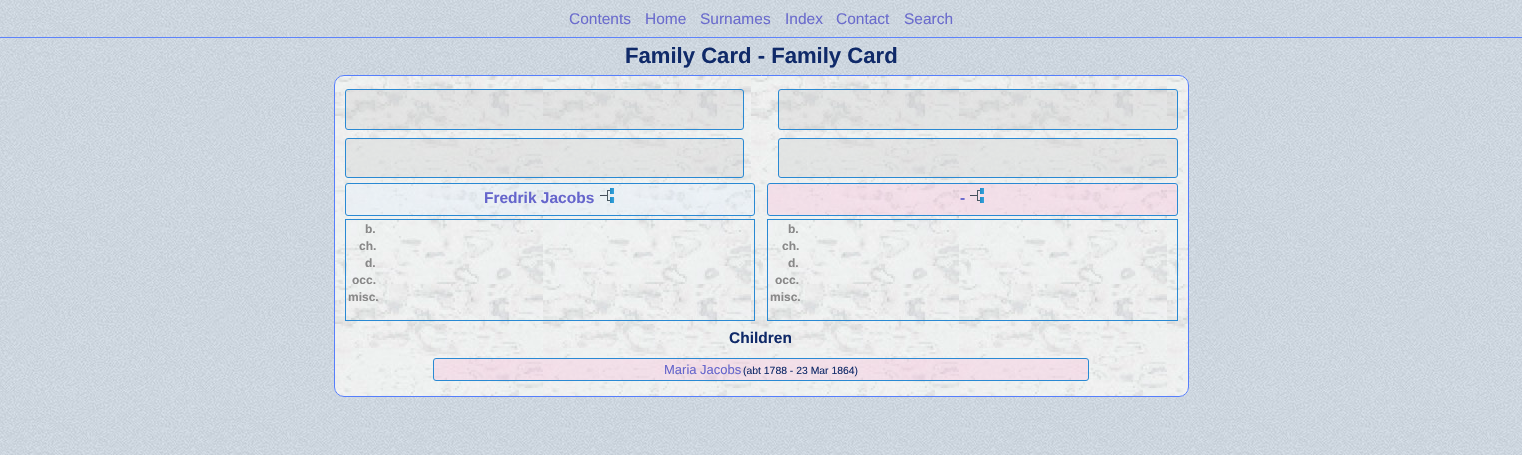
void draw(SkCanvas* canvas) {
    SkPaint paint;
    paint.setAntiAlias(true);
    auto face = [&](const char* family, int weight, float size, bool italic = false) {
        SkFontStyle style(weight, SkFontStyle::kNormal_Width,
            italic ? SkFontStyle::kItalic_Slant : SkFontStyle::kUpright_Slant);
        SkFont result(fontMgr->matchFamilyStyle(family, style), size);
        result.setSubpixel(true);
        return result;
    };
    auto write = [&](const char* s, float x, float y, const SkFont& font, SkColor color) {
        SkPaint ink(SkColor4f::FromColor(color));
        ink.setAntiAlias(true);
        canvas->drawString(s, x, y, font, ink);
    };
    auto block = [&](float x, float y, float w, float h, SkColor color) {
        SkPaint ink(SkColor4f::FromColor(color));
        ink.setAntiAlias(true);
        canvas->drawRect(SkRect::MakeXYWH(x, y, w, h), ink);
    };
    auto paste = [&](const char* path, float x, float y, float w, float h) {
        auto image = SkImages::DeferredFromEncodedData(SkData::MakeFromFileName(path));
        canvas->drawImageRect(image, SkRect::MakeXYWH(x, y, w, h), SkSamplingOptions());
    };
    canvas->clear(SK_ColorWHITE);
    paste("pic1.png", 0, 0, 1522, 455);
    paste("pic2.png", 0, 37, 1522, 1);
    block(0, 37, 1522, 1, SkColorSetARGB(242, 86, 126, 252));
    auto kFont1 = face("Liberation Sans", 400, 15.5f);
    write("Contents", 569, 24, kFont1, SkColorSetRGB(107, 108, 205));
    write("Home", 645, 24, kFont1, SkColorSetRGB(107, 108, 205));
    write("Surnames", 700, 24, kFont1, SkColorSetRGB(107, 108, 205));
    write("Index", 785, 24, kFont1, SkColorSetRGB(107, 108, 205));
    write("Contact", 836, 24, kFont1, SkColorSetRGB(107, 108, 205));
    write("Search", 904, 24, kFont1, SkColorSetRGB(107, 108, 205));
    auto kFont2 = face("Liberation Sans", 700, 22.1f);
    write("Family Card - Family Card", 625, 63, kFont2, SkColorSetRGB(16, 42, 105));
    paste("pic3.png", 334, 75, 855, 322);
    paint.setStyle(SkPaint::kStroke_Style);
    paint.setStrokeWidth(1);
    paint.setColor(SkColorSetRGB(86, 126, 252));
    canvas->drawRoundRect(SkRect::MakeXYWH(334.5f, 75.5f, 854, 321), 9.5f, 9.5f, paint);
    paint.setStyle(SkPaint::kFill_Style);
    paint.setColor(SkColorSetARGB(77, 200, 200, 200));
    canvas->drawRoundRect(SkRect::MakeXYWH(345.5f, 89.5f, 398, 40), 2.5f, 2.5f, paint);
    paint.setStyle(SkPaint::kStroke_Style);
    paint.setColor(SkColorSetRGB(41, 137, 211));
    canvas->drawRoundRect(SkRect::MakeXYWH(345.5f, 89.5f, 398, 40), 2.5f, 2.5f, paint);
    paint.setStyle(SkPaint::kFill_Style);
    paint.setColor(SkColorSetARGB(77, 200, 200, 200));
    canvas->drawRoundRect(SkRect::MakeXYWH(778.5f, 89.5f, 399, 40), 2.5f, 2.5f, paint);
    paint.setStyle(SkPaint::kStroke_Style);
    paint.setColor(SkColorSetRGB(41, 137, 211));
    canvas->drawRoundRect(SkRect::MakeXYWH(778.5f, 89.5f, 399, 40), 2.5f, 2.5f, paint);
    paint.setStyle(SkPaint::kFill_Style);
    paint.setColor(SkColorSetARGB(77, 200, 200, 200));
    canvas->drawRoundRect(SkRect::MakeXYWH(345.5f, 138.5f, 398, 39), 2.5f, 2.5f, paint);
    paint.setStyle(SkPaint::kStroke_Style);
    paint.setColor(SkColorSetRGB(41, 137, 211));
    canvas->drawRoundRect(SkRect::MakeXYWH(345.5f, 138.5f, 398, 39), 2.5f, 2.5f, paint);
    paint.setStyle(SkPaint::kFill_Style);
    paint.setColor(SkColorSetARGB(77, 200, 200, 200));
    canvas->drawRoundRect(SkRect::MakeXYWH(778.5f, 138.5f, 399, 39), 2.5f, 2.5f, paint);
    paint.setStyle(SkPaint::kStroke_Style);
    paint.setColor(SkColorSetRGB(41, 137, 211));
    canvas->drawRoundRect(SkRect::MakeXYWH(778.5f, 138.5f, 399, 39), 2.5f, 2.5f, paint);
    paint.setStyle(SkPaint::kFill_Style);
    paint.setColor(SkColorSetARGB(77, 224, 239, 254));
    canvas->drawRoundRect(SkRect::MakeXYWH(345.5f, 183.5f, 409, 32), 2.5f, 2.5f, paint);
    paint.setStyle(SkPaint::kStroke_Style);
    paint.setColor(SkColorSetRGB(41, 137, 211));
    canvas->drawRoundRect(SkRect::MakeXYWH(345.5f, 183.5f, 409, 32), 2.5f, 2.5f, paint);
    auto kFont3 = face("Liberation Sans", 700, 15.5f);
    write("Fredrik Jacobs", 484, 203, kFont3, SkColorSetRGB(102, 102, 204));
    paste("pic4.png", 600, 188, 14, 15);
    paint.setStyle(SkPaint::kFill_Style);
    paint.setColor(SkColorSetARGB(77, 252, 183, 214));
    canvas->drawRoundRect(SkRect::MakeXYWH(767.5f, 183.5f, 410, 32), 2.5f, 2.5f, paint);
    paint.setStyle(SkPaint::kStroke_Style);
    paint.setColor(SkColorSetRGB(41, 137, 211));
    canvas->drawRoundRect(SkRect::MakeXYWH(767.5f, 183.5f, 410, 32), 2.5f, 2.5f, paint);
    write("-", 960, 203, kFont3, SkColorSetRGB(102, 102, 204));
    paste("pic5.png", 970, 188, 14, 15);
    canvas->drawRect(SkRect::MakeXYWH(345.5f, 219.5f, 409, 101), paint);
    auto kFont4 = face("Liberation Sans", 700, 12);
    write("b.", 365, 233, kFont4, SkColorSetRGB(136, 136, 136));
    write("ch.", 359, 250, kFont4, SkColorSetRGB(136, 136, 136));
    write("d.", 365, 267, kFont4, SkColorSetRGB(136, 136, 136));
    write("occ.", 352, 284, kFont4, SkColorSetRGB(136, 136, 136));
    write("misc.", 348, 301, kFont4, SkColorSetRGB(136, 136, 136));
    canvas->drawRect(SkRect::MakeXYWH(767.5f, 219.5f, 410, 101), paint);
    write("b.", 788, 233, kFont4, SkColorSetRGB(136, 136, 136));
    write("ch.", 782, 250, kFont4, SkColorSetRGB(136, 136, 136));
    write("d.", 788, 267, kFont4, SkColorSetRGB(136, 136, 136));
    write("occ.", 775, 284, kFont4, SkColorSetRGB(136, 136, 136));
    write("misc.", 770, 301, kFont4, SkColorSetRGB(136, 136, 136));
    write("Children", 729, 343, kFont3, SkColorSetRGB(16, 42, 105));
    paint.setStyle(SkPaint::kFill_Style);
    paint.setColor(SkColorSetARGB(77, 252, 183, 214));
    canvas->drawRoundRect(SkRect::MakeXYWH(433.5f, 358.5f, 655, 22), 2.5f, 2.5f, paint);
    paint.setStyle(SkPaint::kStroke_Style);
    paint.setColor(SkColorSetRGB(41, 137, 211));
    canvas->drawRoundRect(SkRect::MakeXYWH(433.5f, 358.5f, 655, 22), 2.5f, 2.5f, paint);
    auto kFont5 = face("Liberation Sans", 400, 13);
    write("Maria Jacobs", 664, 374, kFont5, SkColorSetRGB(102, 102, 204));
    auto kFont6 = face("Liberation Sans", 400, 10.4f);
    write("(abt 1788 - 23 Mar 1864)", 743, 374, kFont6, SkColorSetRGB(16, 42, 105));
}
